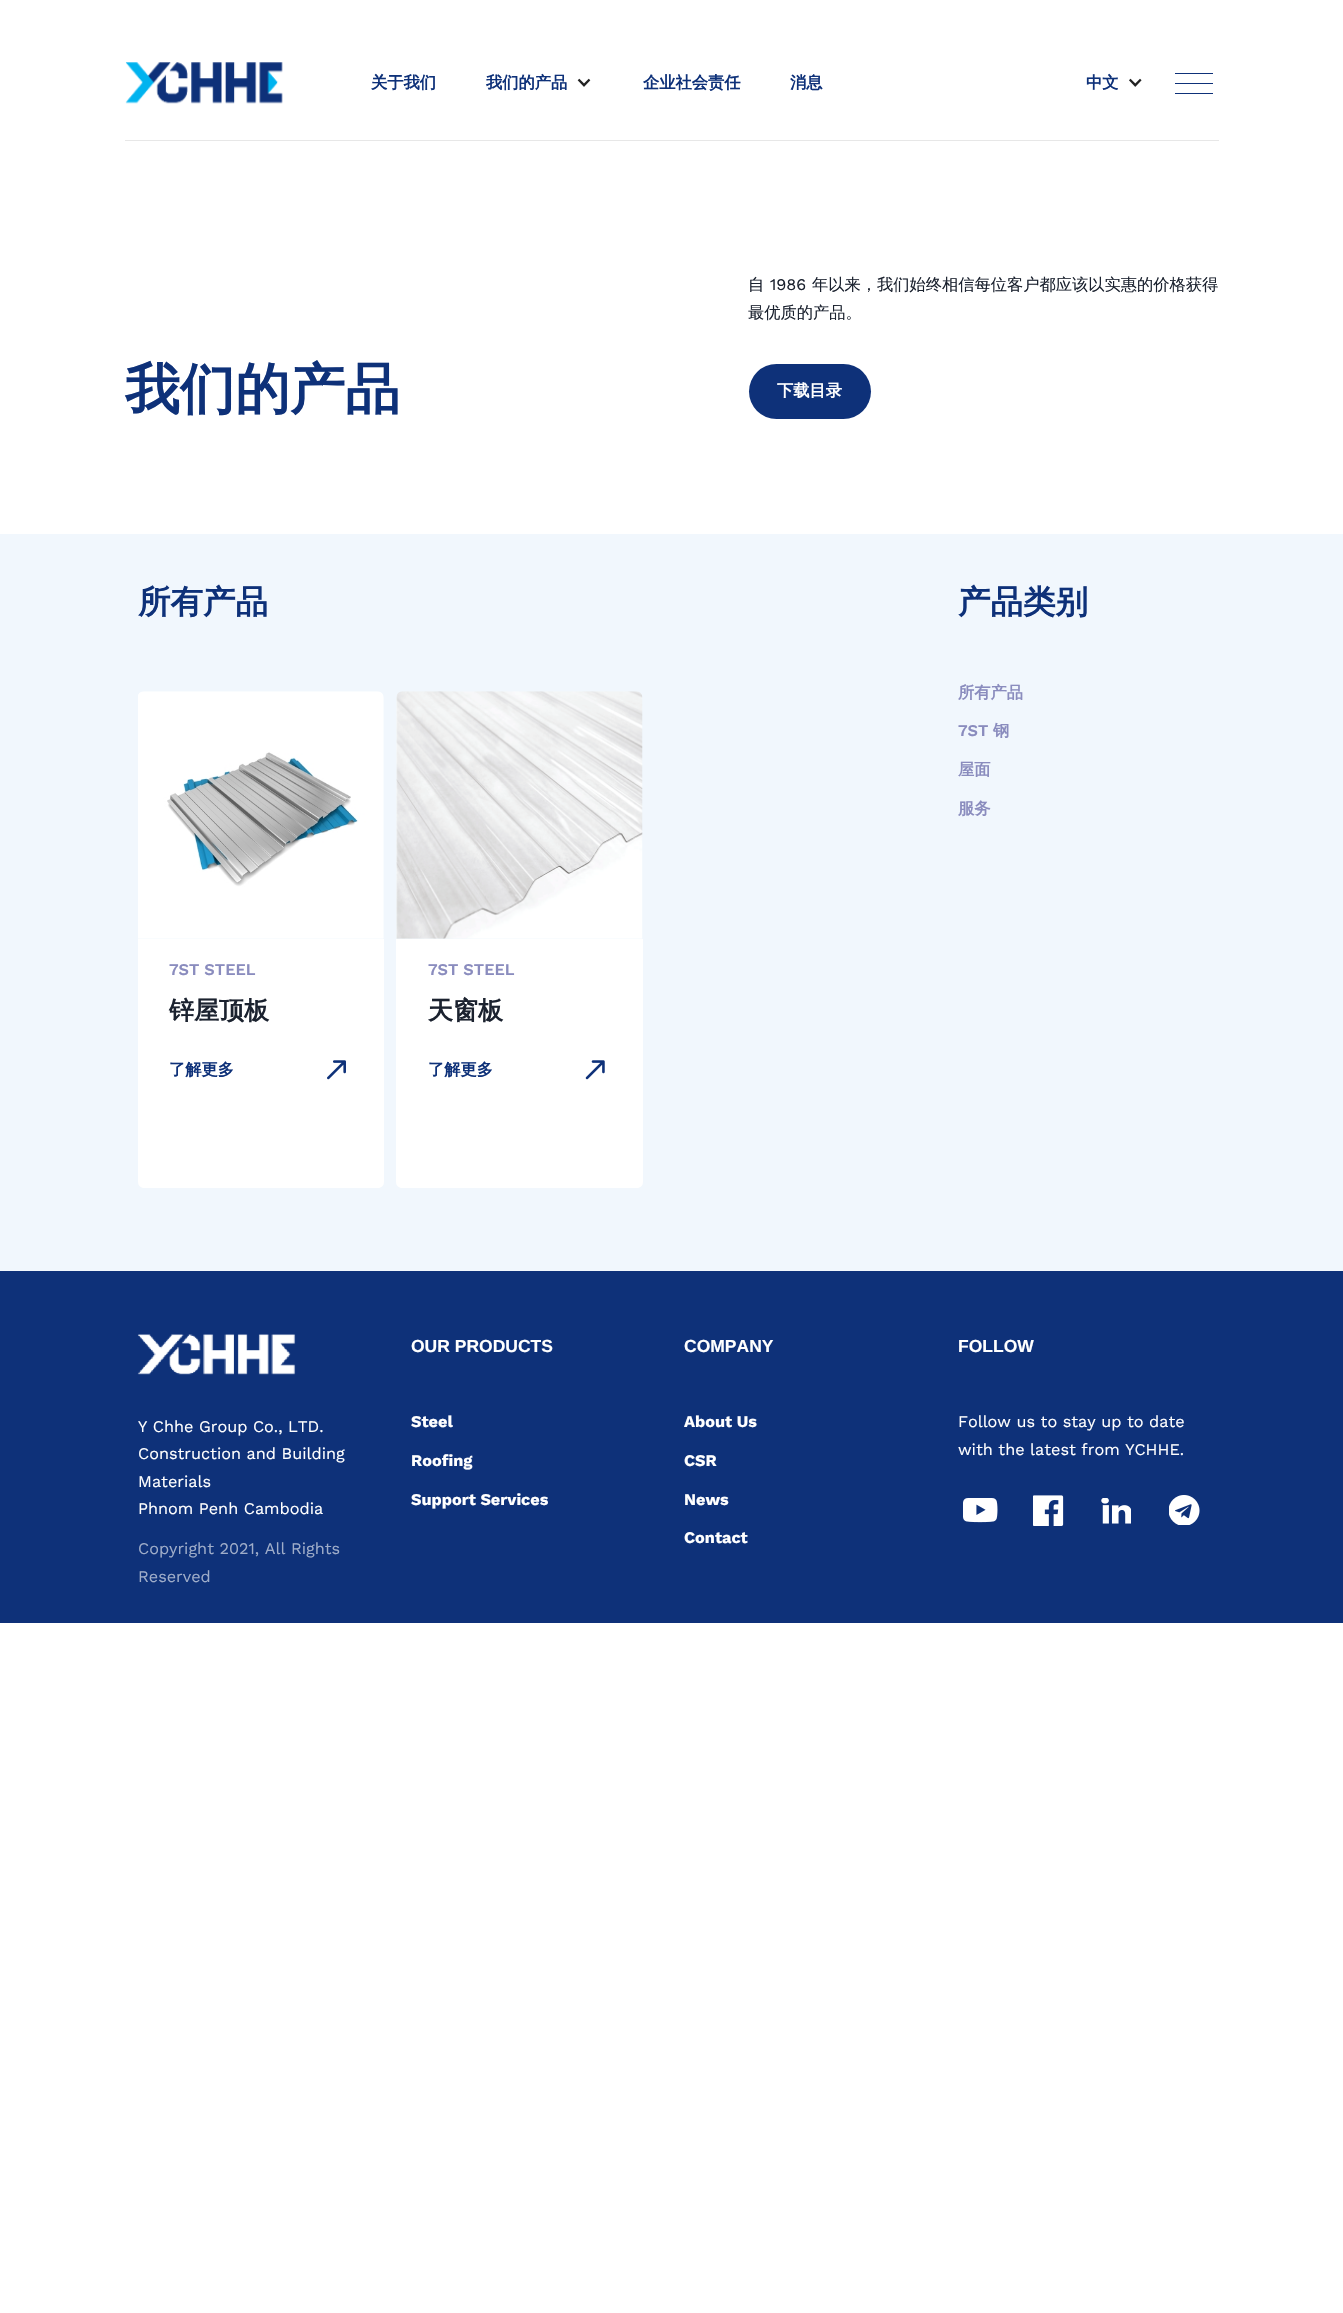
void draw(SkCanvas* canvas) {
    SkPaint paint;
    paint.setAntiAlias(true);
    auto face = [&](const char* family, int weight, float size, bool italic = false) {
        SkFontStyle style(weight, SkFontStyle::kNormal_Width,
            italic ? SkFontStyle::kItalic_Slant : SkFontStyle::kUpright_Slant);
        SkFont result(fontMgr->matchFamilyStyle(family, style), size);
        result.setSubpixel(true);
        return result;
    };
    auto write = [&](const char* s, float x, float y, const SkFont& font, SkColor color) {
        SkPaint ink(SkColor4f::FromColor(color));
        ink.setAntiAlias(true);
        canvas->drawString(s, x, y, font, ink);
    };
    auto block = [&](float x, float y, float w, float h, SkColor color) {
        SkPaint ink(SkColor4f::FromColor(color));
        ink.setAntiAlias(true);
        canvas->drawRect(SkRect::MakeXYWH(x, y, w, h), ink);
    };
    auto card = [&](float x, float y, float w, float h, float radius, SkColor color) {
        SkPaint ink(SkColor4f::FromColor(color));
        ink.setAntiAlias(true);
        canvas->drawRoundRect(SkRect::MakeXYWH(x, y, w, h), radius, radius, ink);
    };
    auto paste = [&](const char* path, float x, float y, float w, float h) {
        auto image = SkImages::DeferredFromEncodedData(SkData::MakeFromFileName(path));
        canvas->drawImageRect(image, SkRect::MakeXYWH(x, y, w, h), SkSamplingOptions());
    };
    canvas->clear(SK_ColorWHITE);
    block(125, 140, 1094, 1, SkColorSetRGB(231, 231, 231));
    paste("pic1.png", 125, 62, 158, 42);
    auto kFont1 = face("WenQuanYi Zen Hei", 700, 16.25f);
    write("关于我们", 371, 88, kFont1, SkColorSetRGB(14, 49, 121));
    write("我们的产品", 486, 88, kFont1, SkColorSetRGB(14, 49, 121));
    paste("pic2.png", 577, 78, 14, 9);
    write("企业社会责任", 643, 88, kFont1, SkColorSetRGB(14, 49, 121));
    write("消息", 790, 88, kFont1, SkColorSetRGB(14, 49, 121));
    write("中文", 1086, 88, kFont1, SkColorSetRGB(14, 49, 121));
    paste("pic3.png", 1129, 78, 13, 9);
    block(1175, 73, 38, 1, SkColorSetRGB(14, 49, 121));
    block(1175, 83, 38, 1, SkColorSetRGB(14, 49, 121));
    block(1175, 93, 38, 1, SkColorSetRGB(14, 49, 121));
    auto kFont2 = face("WenQuanYi Zen Hei", 700, 55);
    write("我们的产品", 125, 408, kFont2, SkColorSetRGB(14, 49, 121));
    auto kFont3 = face("WenQuanYi Zen Hei", 500, 16.25f);
    write("自", 748, 290, kFont3, SkColorSetRGB(27, 34, 47));
    auto kFont4 = face("Work Sans", 400, 16.25f);
    write("1986", 770, 290, kFont4, SkColorSetRGB(27, 34, 47));
    write("年以来，我们始终相信每位客户都应该以实惠的价格获得", 812, 290, kFont3, SkColorSetRGB(27, 34, 47));
    write("最优质的产品。", 748, 318, kFont3, SkColorSetRGB(27, 34, 47));
    card(749, 364, 122, 55, 27.5f, SkColorSetRGB(14, 49, 121));
    write("下载目录", 777, 396, kFont1, SK_ColorWHITE);
    block(0, 534, 1343, 737, SkColorSetRGB(241, 247, 253));
    auto kFont5 = face("WenQuanYi Zen Hei", 700, 32.5f);
    write("所有产品", 138, 613, kFont5, SkColorSetRGB(14, 49, 121));
    paste("pic4.png", 138, 691, 246, 248);
    paint.setColor(SK_ColorWHITE);
    canvas->drawPath(SkPathBuilder().moveTo(138, 939).lineTo(384, 939).lineTo(384, 1182).cubicTo(384, 1185.5f, 381.5f, 1188, 378, 1188).lineTo(144, 1188).cubicTo(140.5f, 1188, 138, 1185.5f, 138, 1182).close().detach(), paint);
    auto kFont6 = face("Work Sans", 600, 16.25f);
    write("7ST STEEL", 169, 975, kFont6, SkColorSetRGB(138, 140, 190));
    auto kFont7 = face("WenQuanYi Zen Hei", 700, 25);
    write("锌屋顶板", 169, 1019, kFont7, SkColorSetRGB(27, 34, 47));
    write("了解更多", 169, 1075, kFont1, SkColorSetRGB(14, 49, 121));
    paste("pic5.png", 327, 1060, 19, 20);
    paste("pic6.png", 396, 691, 247, 248);
    canvas->drawPath(SkPathBuilder().moveTo(396, 939).lineTo(643, 939).lineTo(643, 1182).cubicTo(643, 1185.5f, 640.5f, 1188, 637, 1188).lineTo(402, 1188).cubicTo(398.5f, 1188, 396, 1185.5f, 396, 1182).close().detach(), paint);
    write("7ST STEEL", 428, 975, kFont6, SkColorSetRGB(138, 140, 190));
    write("天窗板", 428, 1019, kFont7, SkColorSetRGB(27, 34, 47));
    write("了解更多", 428, 1075, kFont1, SkColorSetRGB(14, 49, 121));
    paste("pic7.png", 585, 1060, 20, 20);
    write("产品类别", 958, 613, kFont5, SkColorSetRGB(14, 49, 121));
    write("所有产品", 958, 698, kFont1, SkColorSetRGB(138, 140, 190));
    write("7ST", 958, 736, kFont6, SkColorSetRGB(138, 140, 190));
    write("钢", 993, 736, kFont1, SkColorSetRGB(138, 140, 190));
    write("屋面", 958, 775, kFont1, SkColorSetRGB(138, 140, 190));
    write("服务", 958, 814, kFont1, SkColorSetRGB(138, 140, 190));
    block(0, 1271, 1343, 352, SkColorSetRGB(14, 49, 121));
    auto kFont8 = face("Liberation Sans", 700, 17.5f);
    write("OUR PRODUCTS", 411, 1352, kFont8, SK_ColorWHITE);
    auto kFont9 = face("Work Sans", 700, 16.25f);
    write("Steel", 411, 1427, kFont9, SK_ColorWHITE);
    write("Roofing", 411, 1466, kFont9, SK_ColorWHITE);
    write("Support Services", 411, 1505, kFont9, SK_ColorWHITE);
    write("COMPANY", 684, 1352, kFont8, SK_ColorWHITE);
    write("About Us", 684, 1427, kFont9, SK_ColorWHITE);
    write("CSR", 684, 1466, kFont9, SK_ColorWHITE);
    write("News", 684, 1505, kFont9, SK_ColorWHITE);
    write("Contact", 684, 1543, kFont9, SK_ColorWHITE);
    write("FOLLOW", 958, 1352, kFont8, SK_ColorWHITE);
    write("Follow us to stay up to date", 958, 1427, kFont4, SK_ColorWHITE);
    write("with the latest from YCHHE.", 958, 1455, kFont4, SK_ColorWHITE);
    paste("pic8.png", 963, 1498, 35, 25);
    paste("pic9.png", 1033, 1495, 31, 31);
    paste("pic10.png", 1101, 1498, 30, 26);
    paste("pic11.png", 1169, 1495, 31, 30);
    paste("pic12.png", 137, 1334, 159, 41);
    write("Y Chhe Group Co., LTD.", 138, 1432, kFont4, SK_ColorWHITE);
    write("Construction and Building", 138, 1459, kFont4, SK_ColorWHITE);
    write("Materials", 138, 1487, kFont4, SK_ColorWHITE);
    write("Phnom Penh Cambodia", 138, 1514, kFont4, SK_ColorWHITE);
    write("Copyright 2021, All Rights", 138, 1554, kFont4, SkColorSetRGB(159, 173, 201));
    write("Reserved", 138, 1582, kFont4, SkColorSetRGB(159, 173, 201));
}
